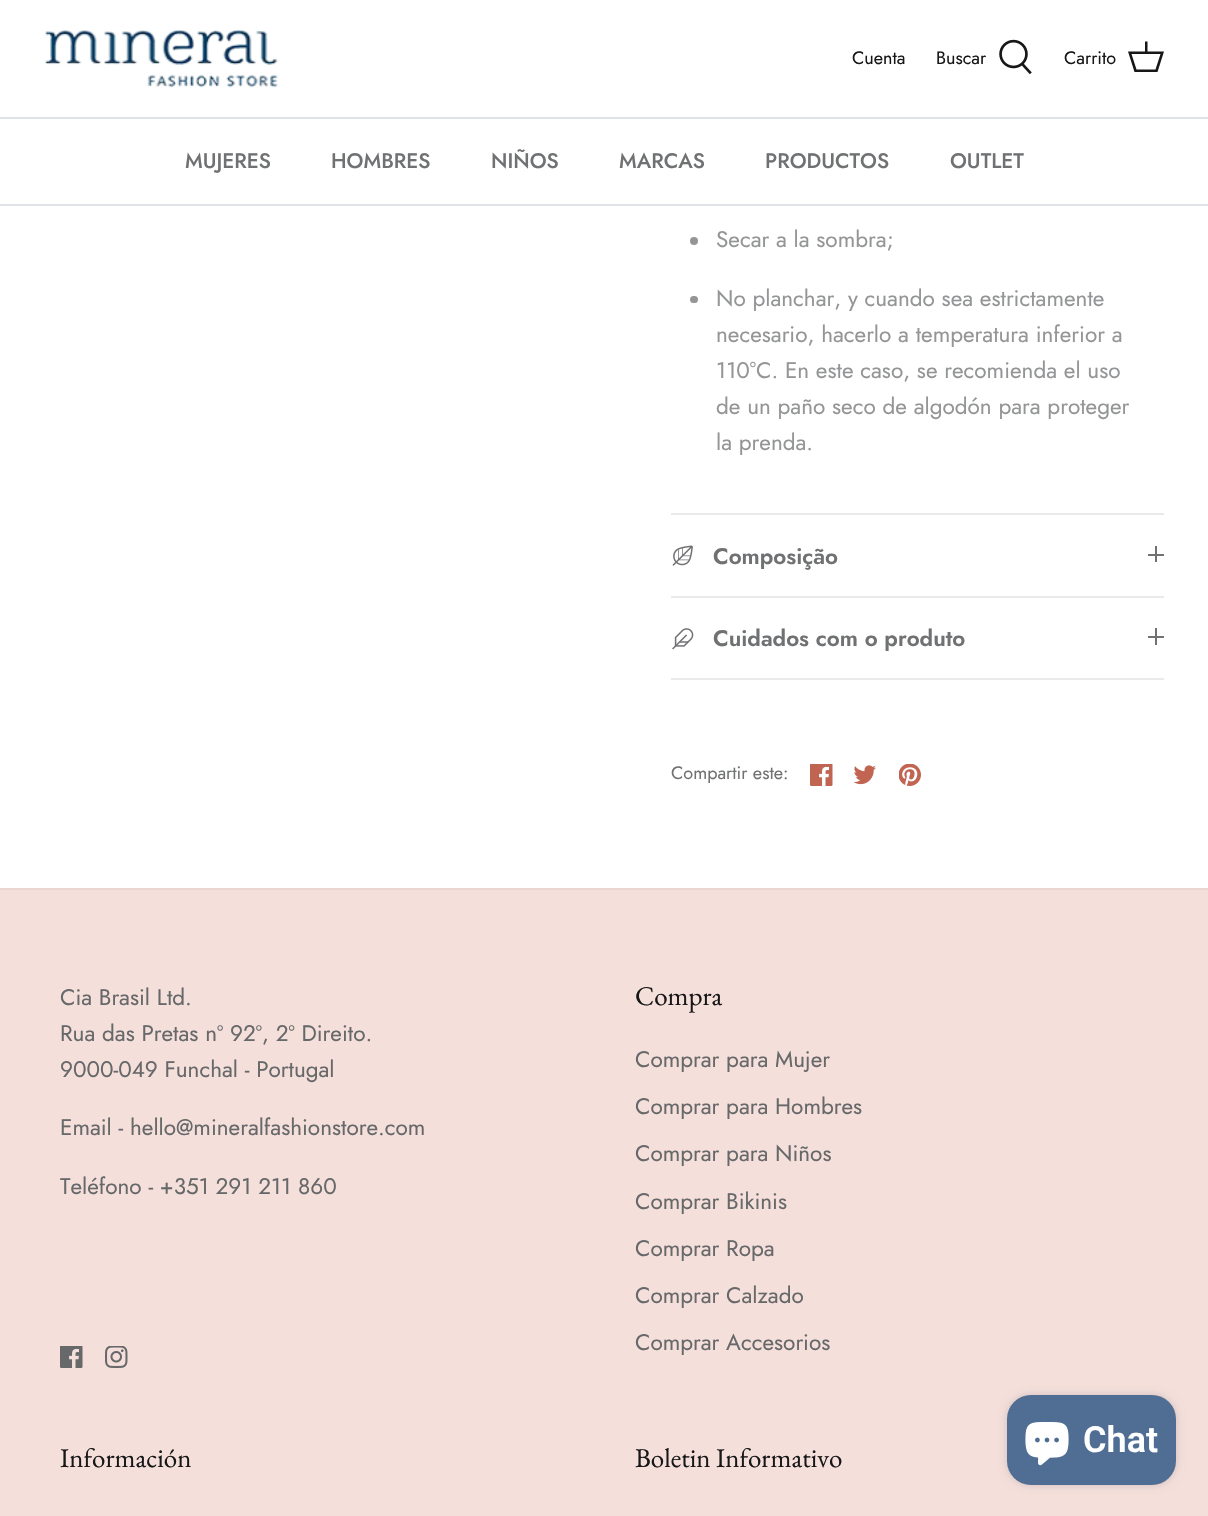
void draw(SkCanvas* canvas) {
    SkPaint paint;
    paint.setAntiAlias(true);
    auto face = [&](const char* family, int weight, float size, bool italic = false) {
        SkFontStyle style(weight, SkFontStyle::kNormal_Width,
            italic ? SkFontStyle::kItalic_Slant : SkFontStyle::kUpright_Slant);
        SkFont result(fontMgr->matchFamilyStyle(family, style), size);
        result.setSubpixel(true);
        return result;
    };
    auto write = [&](const char* s, float x, float y, const SkFont& font, SkColor color) {
        SkPaint ink(SkColor4f::FromColor(color));
        ink.setAntiAlias(true);
        canvas->drawString(s, x, y, font, ink);
    };
    auto block = [&](float x, float y, float w, float h, SkColor color) {
        SkPaint ink(SkColor4f::FromColor(color));
        ink.setAntiAlias(true);
        canvas->drawRect(SkRect::MakeXYWH(x, y, w, h), ink);
    };
    auto card = [&](float x, float y, float w, float h, float radius, SkColor color) {
        SkPaint ink(SkColor4f::FromColor(color));
        ink.setAntiAlias(true);
        canvas->drawRoundRect(SkRect::MakeXYWH(x, y, w, h), radius, radius, ink);
    };
    auto paste = [&](const char* path, float x, float y, float w, float h) {
        auto image = SkImages::DeferredFromEncodedData(SkData::MakeFromFileName(path));
        canvas->drawImageRect(image, SkRect::MakeXYWH(x, y, w, h), SkSamplingOptions());
    };
    canvas->clear(SK_ColorWHITE);
    block(0, 117, 1208, 2, SkColorSetRGB(223, 227, 232));
    paste("pic1.png", 45, 30, 233, 58);
    auto kFont1 = face("Jost", 400, 18);
    write("Cuenta", 852, 64, kFont1, SkColorSetRGB(23, 23, 23));
    write("Buscar", 936, 64, kFont1, SkColorSetRGB(23, 23, 23));
    paste("pic2.png", 999, 39, 33, 36);
    write("Carrito", 1064, 64, kFont1, SkColorSetRGB(23, 23, 23));
    paint.setColor(SkColorSetRGB(23, 23, 23));
    canvas->drawPath(SkPathBuilder().moveTo(1145, 51.5f).lineTo(1145, 41.5f).lineTo(1147.5f, 41.5f).lineTo(1147.5f, 51.5f).lineTo(1164, 51.5f).lineTo(1157.5f, 72).lineTo(1134.5f, 72).lineTo(1128, 51.5f).close().moveTo(1131.5f, 54).lineTo(1136.5f, 69.5f).lineTo(1155.5f, 69.5f).lineTo(1160.5f, 54).close().detach(), paint);
    block(0, 204, 1208, 2, SkColorSetRGB(223, 227, 232));
    auto kFont2 = face("Jost", 500, 21);
    write("MUJERES", 185, 168, kFont2, SkColorSetRGB(112, 113, 115));
    write("HOMBRES", 331, 168, kFont2, SkColorSetRGB(112, 113, 115));
    write("NIÑOS", 491, 168, kFont2, SkColorSetRGB(112, 113, 115));
    write("MARCAS", 619, 168, kFont2, SkColorSetRGB(112, 113, 115));
    write("PRODUCTOS", 765, 168, kFont2, SkColorSetRGB(112, 113, 115));
    write("OUTLET", 950, 168, kFont2, SkColorSetRGB(112, 113, 115));
    block(671, 513, 493, 2, SkColorSetRGB(234, 234, 234));
    paint.setColor(SkColorSetRGB(148, 149, 150));
    canvas->drawCircle(694, 241, 4, paint);
    auto kFont3 = face("Jost", 400, 22.5f);
    write("Secar a la sombra;", 716, 247, kFont3, SkColorSetRGB(148, 149, 150));
    card(690, 296, 8, 7, 3.5f, SkColorSetRGB(148, 149, 150));
    write("No planchar, y cuando sea estrictamente", 716, 306, kFont3, SkColorSetRGB(148, 149, 150));
    write("necesario, hacerlo a temperatura inferior a", 716, 342, kFont3, SkColorSetRGB(148, 149, 150));
    write("110 °C. En este caso, se recomienda el uso", 716, 378, kFont3, SkColorSetRGB(148, 149, 150));
    write("de un paño seco de algodón para proteger", 716, 414, kFont3, SkColorSetRGB(148, 149, 150));
    write("la prenda.", 716, 450, kFont3, SkColorSetRGB(148, 149, 150));
    block(671, 596, 493, 2, SkColorSetRGB(234, 234, 234));
    paste("pic3.png", 672, 545, 21, 21);
    auto kFont4 = face("Jost", 600, 22.5f);
    write("Composição", 713, 564, kFont4, SkColorSetRGB(112, 113, 115));
    block(1155, 546, 2, 16, SkColorSetRGB(112, 113, 115));
    block(1148, 554, 16, 2, SkColorSetRGB(112, 113, 115));
    block(671, 678, 493, 2, SkColorSetRGB(234, 234, 234));
    paste("pic4.png", 672, 628, 22, 22);
    write("Cuidados com o produto", 713, 646, kFont4, SkColorSetRGB(112, 113, 115));
    block(1155, 628, 2, 17, SkColorSetRGB(112, 113, 115));
    block(1148, 636, 16, 2, SkColorSetRGB(112, 113, 115));
    write("Compartir este:", 671, 779, kFont1, SkColorSetRGB(112, 113, 115));
    paste("pic5.png", 810, 764, 23, 22);
    paste("pic6.png", 854, 765, 22, 20);
    paste("pic7.png", 899, 764, 22, 22);
    block(0, 890, 1208, 626, SkColorSetRGB(244, 223, 219));
    block(0, 888, 1208, 2, SkColorSetRGB(236, 214, 209));
    write("Cia Brasil Ltd.", 60, 1005, kFont3, SkColorSetRGB(103, 104, 105));
    write("Rua das Pretas nº 92º, 2º Direito.", 60, 1041, kFont3, SkColorSetRGB(103, 104, 105));
    write("9000-049 Funchal - Portugal", 60, 1077, kFont3, SkColorSetRGB(103, 104, 105));
    write("Email - hello@mineralfashionstore.com", 60, 1135, kFont3, SkColorSetRGB(103, 104, 105));
    write("Teléfono - +351 291 211 860", 60, 1194, kFont3, SkColorSetRGB(103, 104, 105));
    paste("pic8.png", 60, 1346, 23, 22);
    paste("pic9.png", 105, 1346, 23, 22);
    auto kFont5 = face("EB Garamond", 400, 27);
    write("Compra", 635, 1005, kFont5, SkColorSetRGB(23, 23, 23));
    write("Comprar para Mujer", 635, 1067, kFont3, SkColorSetRGB(103, 104, 105));
    write("Comprar para Hombres", 635, 1114, kFont3, SkColorSetRGB(103, 104, 105));
    write("Comprar para Niños", 635, 1161, kFont3, SkColorSetRGB(103, 104, 105));
    write("Comprar Bikinis", 635, 1209, kFont3, SkColorSetRGB(103, 104, 105));
    write("Comprar Ropa", 635, 1256, kFont3, SkColorSetRGB(103, 104, 105));
    write("Comprar Calzado", 635, 1303, kFont3, SkColorSetRGB(103, 104, 105));
    write("Comprar Accesorios", 635, 1350, kFont3, SkColorSetRGB(103, 104, 105));
    write("Información", 60, 1467, kFont5, SkColorSetRGB(23, 23, 23));
    write("Boletin Informativo", 635, 1467, kFont5, SkColorSetRGB(23, 23, 23));
    paint.setColor(SkColorSetARGB(38, 0, 0, 0));
    paint.setMaskFilter(SkMaskFilter::MakeBlur(kNormal_SkBlurStyle, 4));
    canvas->drawRoundRect(SkRect::MakeXYWH(1007, 1395, 169, 90), 24, 24, paint);
    paint.setMaskFilter(nullptr);
    card(1007, 1395, 169, 90, 24, SkColorSetRGB(80, 110, 148));
    paste("pic10.png", 1025, 1422, 44, 44);
    auto kFont6 = face("Roboto", 600, 36);
    write("Chat", 1083, 1452, kFont6, SK_ColorWHITE);
}
